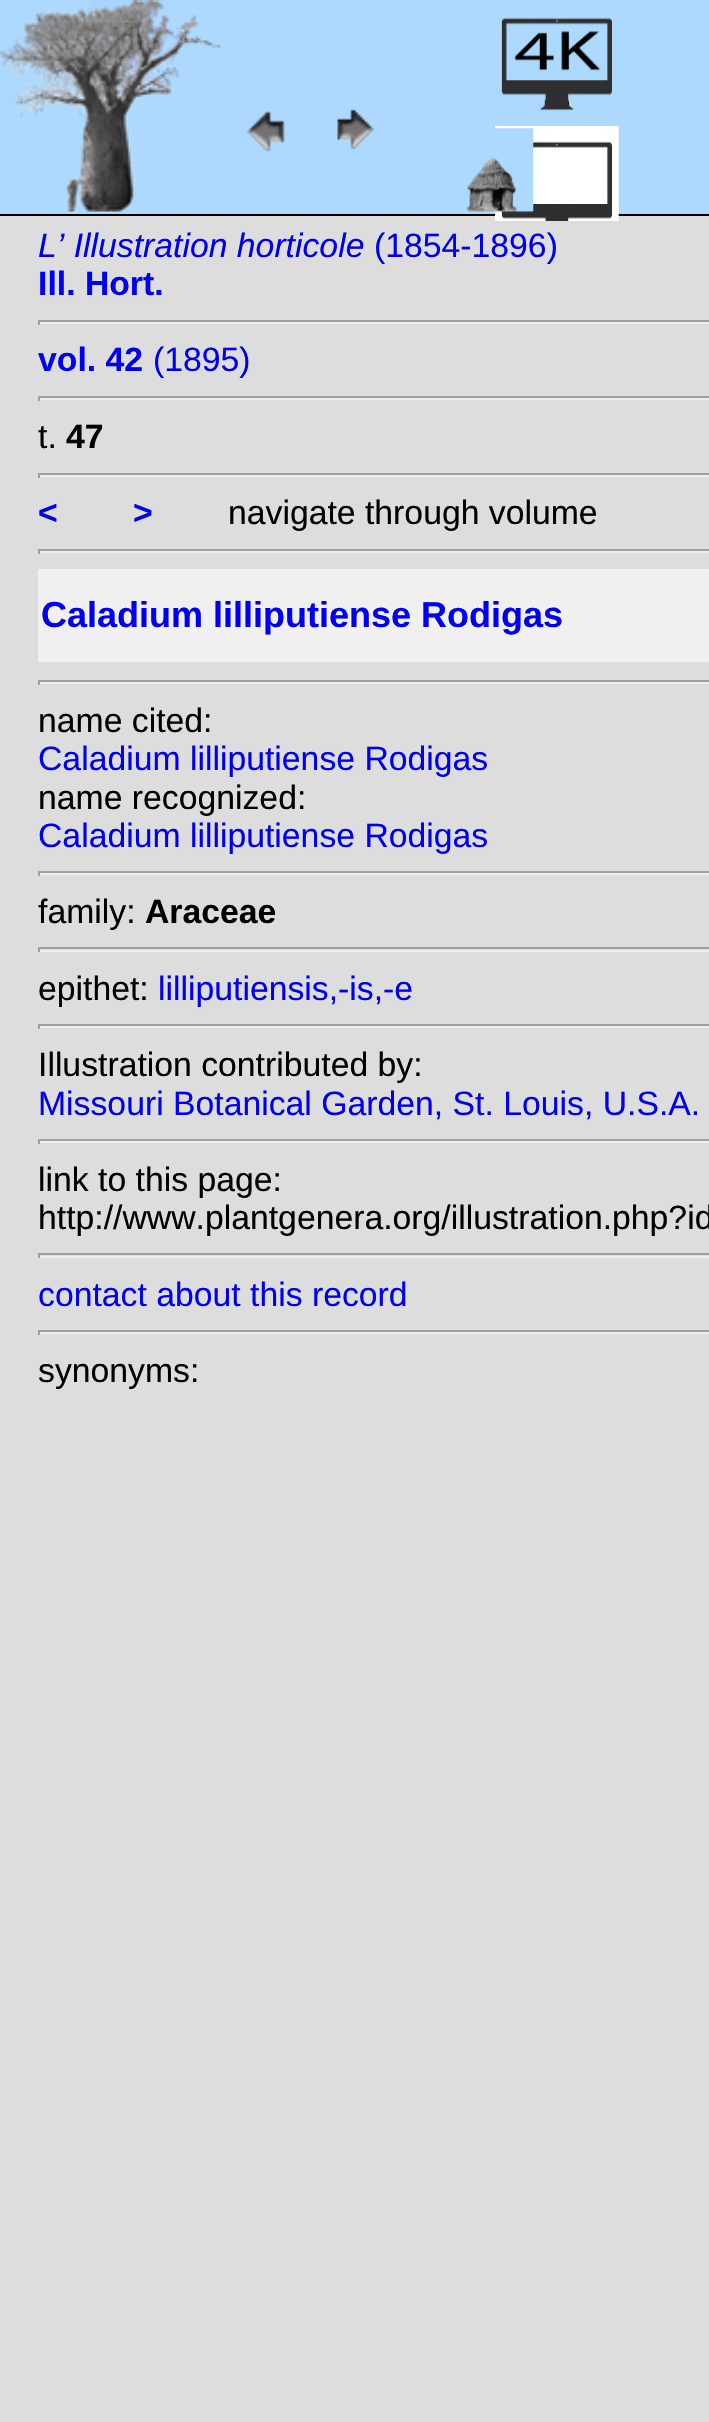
void draw(SkCanvas* canvas) {
    SkPaint paint;
    paint.setAntiAlias(true);
    auto face = [&](const char* family, int weight, float size, bool italic = false) {
        SkFontStyle style(weight, SkFontStyle::kNormal_Width,
            italic ? SkFontStyle::kItalic_Slant : SkFontStyle::kUpright_Slant);
        SkFont result(fontMgr->matchFamilyStyle(family, style), size);
        result.setSubpixel(true);
        return result;
    };
    auto write = [&](const char* s, float x, float y, const SkFont& font, SkColor color) {
        SkPaint ink(SkColor4f::FromColor(color));
        ink.setAntiAlias(true);
        canvas->drawString(s, x, y, font, ink);
    };
    auto block = [&](float x, float y, float w, float h, SkColor color) {
        SkPaint ink(SkColor4f::FromColor(color));
        ink.setAntiAlias(true);
        canvas->drawRect(SkRect::MakeXYWH(x, y, w, h), ink);
    };
    auto paste = [&](const char* path, float x, float y, float w, float h) {
        auto image = SkImages::DeferredFromEncodedData(SkData::MakeFromFileName(path));
        canvas->drawImageRect(image, SkRect::MakeXYWH(x, y, w, h), SkSamplingOptions());
    };
    canvas->clear(SkColorSetRGB(221, 221, 221));
    block(0, 0, 709, 214, SkColorSetRGB(173, 217, 254));
    block(0, 214, 709, 2, SK_ColorBLACK);
    paste("pic1.png", 0, 0, 225, 212);
    paste("pic2.png", 246, 111, 39, 41);
    paste("pic3.png", 337, 109, 38, 41);
    paste("pic4.png", 499, 17, 114, 94);
    paste("pic5.png", 495, 126, 124, 95);
    paste("pic6.png", 466, 128, 68, 85);
    auto kFont1 = face("Liberation Sans", 400, 33.75f, true);
    write("L’ Illustration horticole", 38, 257, kFont1, SkColorSetRGB(0, 0, 238));
    auto kFont2 = face("Liberation Sans", 400, 33.75f);
    write("(1854-1896)", 374, 257, kFont2, SkColorSetRGB(0, 0, 238));
    auto kFont3 = face("Liberation Sans", 700, 33.75f);
    write("Ill. Hort.", 38, 295, kFont3, SkColorSetRGB(0, 0, 238));
    block(38, 320, 671, 2, SkColorSetRGB(159, 159, 159));
    block(38, 322, 671, 2, SkColorSetRGB(238, 238, 238));
    block(38, 320, 2, 5, SkColorSetRGB(159, 159, 159));
    write("vol. 42", 38, 371, kFont3, SkColorSetRGB(0, 0, 238));
    write("(1895)", 153, 371, kFont2, SkColorSetRGB(0, 0, 238));
    block(38, 396, 671, 2, SkColorSetRGB(159, 159, 159));
    block(38, 398, 671, 2, SkColorSetRGB(238, 238, 238));
    block(38, 396, 2, 5, SkColorSetRGB(159, 159, 159));
    write("t.", 38, 448, kFont2, SK_ColorBLACK);
    write("47", 66, 448, kFont3, SK_ColorBLACK);
    block(38, 473, 671, 2, SkColorSetRGB(159, 159, 159));
    block(38, 475, 671, 2, SkColorSetRGB(238, 238, 238));
    block(38, 473, 2, 5, SkColorSetRGB(159, 159, 159));
    write("<", 38, 524, kFont3, SkColorSetRGB(0, 0, 238));
    write(">", 133, 524, kFont3, SkColorSetRGB(0, 0, 238));
    write("navigate through volume", 228, 524, kFont2, SK_ColorBLACK);
    block(38, 549, 671, 2, SkColorSetRGB(159, 159, 159));
    block(38, 551, 671, 2, SkColorSetRGB(238, 238, 238));
    block(38, 549, 2, 5, SkColorSetRGB(159, 159, 159));
    block(38, 569, 671, 93, SkColorSetRGB(240, 240, 240));
    auto kFont4 = face("Liberation Sans", 700, 36);
    write("Caladium lilliputiense Rodigas", 41, 627, kFont4, SkColorSetRGB(0, 0, 238));
    block(38, 680, 671, 2, SkColorSetRGB(159, 159, 159));
    block(38, 682, 671, 2, SkColorSetRGB(238, 238, 238));
    block(38, 680, 2, 5, SkColorSetRGB(159, 159, 159));
    write("name cited:", 38, 732, kFont2, SK_ColorBLACK);
    write("Caladium lilliputiense Rodigas", 38, 770, kFont2, SkColorSetRGB(0, 0, 238));
    write("name recognized:", 38, 809, kFont2, SK_ColorBLACK);
    write("Caladium lilliputiense Rodigas", 38, 847, kFont2, SkColorSetRGB(0, 0, 238));
    block(38, 871, 671, 2, SkColorSetRGB(159, 159, 159));
    block(38, 873, 671, 2, SkColorSetRGB(238, 238, 238));
    block(38, 871, 2, 5, SkColorSetRGB(159, 159, 159));
    write("family:", 38, 923, kFont2, SK_ColorBLACK);
    write("Araceae", 145, 923, kFont3, SK_ColorBLACK);
    block(38, 947, 671, 2, SkColorSetRGB(159, 159, 159));
    block(38, 950, 671, 2, SkColorSetRGB(238, 238, 238));
    block(38, 947, 2, 5, SkColorSetRGB(159, 159, 159));
    write("epithet:", 38, 1000, kFont2, SK_ColorBLACK);
    write("lilliputiensis,-is,-e", 158, 1000, kFont2, SkColorSetRGB(0, 0, 238));
    block(38, 1024, 671, 2, SkColorSetRGB(159, 159, 159));
    block(38, 1026, 671, 2, SkColorSetRGB(238, 238, 238));
    block(38, 1024, 2, 5, SkColorSetRGB(159, 159, 159));
    write("Illustration contributed by:", 38, 1076, kFont2, SK_ColorBLACK);
    write("Missouri Botanical Garden, St. Louis, U.S.A.", 38, 1115, kFont2, SkColorSetRGB(0, 0, 238));
    block(38, 1139, 671, 2, SkColorSetRGB(159, 159, 159));
    block(38, 1141, 671, 2, SkColorSetRGB(238, 238, 238));
    block(38, 1139, 2, 5, SkColorSetRGB(159, 159, 159));
    write("link to this page:", 38, 1191, kFont2, SK_ColorBLACK);
    write("http://www.plantgenera.org/illustration.php?id", 38, 1229, kFont2, SK_ColorBLACK);
    block(38, 1253, 671, 2, SkColorSetRGB(159, 159, 159));
    block(38, 1256, 671, 2, SkColorSetRGB(238, 238, 238));
    block(38, 1253, 2, 5, SkColorSetRGB(159, 159, 159));
    write("contact about this record", 38, 1306, kFont2, SkColorSetRGB(0, 0, 238));
    block(38, 1330, 671, 2, SkColorSetRGB(159, 159, 159));
    block(38, 1332, 671, 2, SkColorSetRGB(238, 238, 238));
    block(38, 1330, 2, 5, SkColorSetRGB(159, 159, 159));
    write("synonyms:", 38, 1382, kFont2, SK_ColorBLACK);
}
